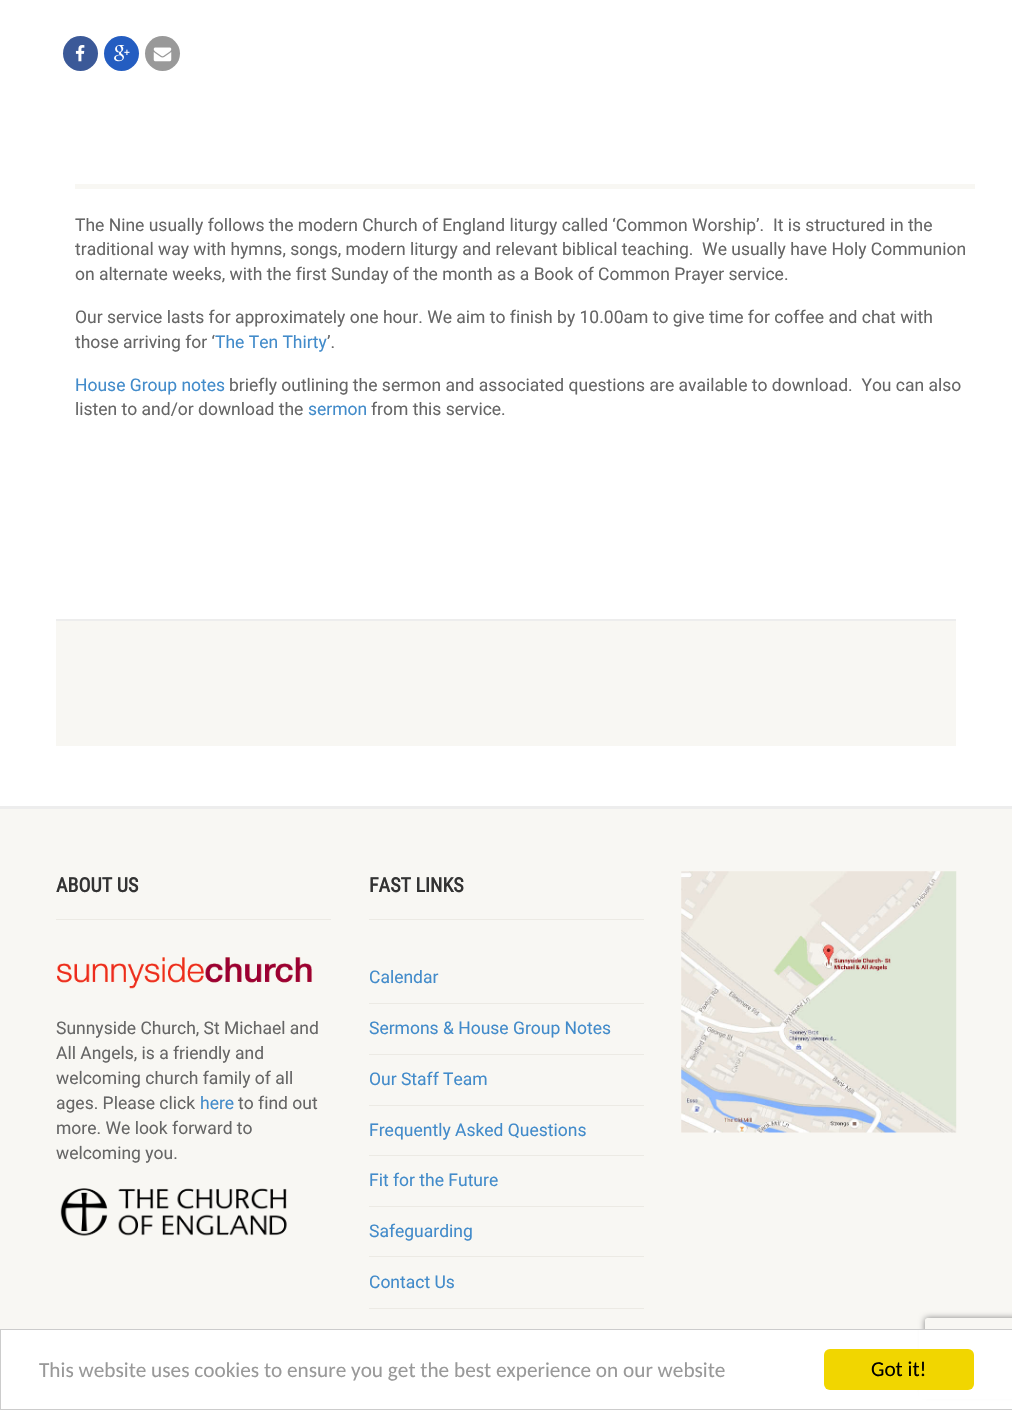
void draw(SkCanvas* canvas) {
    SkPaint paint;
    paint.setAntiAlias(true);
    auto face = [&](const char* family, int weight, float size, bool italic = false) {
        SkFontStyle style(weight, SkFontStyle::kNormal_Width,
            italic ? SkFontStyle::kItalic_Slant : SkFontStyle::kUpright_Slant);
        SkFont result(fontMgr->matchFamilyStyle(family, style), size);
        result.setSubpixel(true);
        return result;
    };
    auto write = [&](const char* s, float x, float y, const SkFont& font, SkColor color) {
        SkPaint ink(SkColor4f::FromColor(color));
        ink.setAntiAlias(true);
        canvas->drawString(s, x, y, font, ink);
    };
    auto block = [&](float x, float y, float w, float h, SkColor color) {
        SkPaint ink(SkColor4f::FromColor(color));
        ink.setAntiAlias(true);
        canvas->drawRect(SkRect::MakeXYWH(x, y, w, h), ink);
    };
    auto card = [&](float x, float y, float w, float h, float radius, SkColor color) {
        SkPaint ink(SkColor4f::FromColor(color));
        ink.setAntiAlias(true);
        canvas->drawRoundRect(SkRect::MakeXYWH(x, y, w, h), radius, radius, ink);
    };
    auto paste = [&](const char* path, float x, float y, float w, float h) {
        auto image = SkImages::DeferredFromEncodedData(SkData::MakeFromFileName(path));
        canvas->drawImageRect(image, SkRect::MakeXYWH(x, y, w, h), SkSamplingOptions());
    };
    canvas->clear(SK_ColorWHITE);
    paint.setColor(SkColorSetRGB(59, 89, 152));
    canvas->drawCircle(80.5f, 53.5f, 17.5f, paint);
    paste("pic1.png", 75, 45, 10, 17);
    paint.setColor(SkColorSetRGB(36, 93, 193));
    canvas->drawCircle(121.5f, 53.5f, 17.5f, paint);
    paste("pic2.png", 114, 45, 16, 17);
    paint.setColor(SkColorSetRGB(153, 153, 153));
    canvas->drawCircle(162.5f, 53.5f, 17.5f, paint);
    paste("pic3.png", 153, 47, 19, 15);
    block(75, 184, 900, 5, SkColorSetRGB(248, 247, 243));
    auto kFont1 = face("Roboto", 400, 17.5f);
    write("The Nine usually follows the modern Church of England liturgy called ‘Common Worship’.  It is structured in the", 75, 231, kFont1, SkColorSetRGB(102, 102, 102));
    write("traditional way with hymns, songs, modern liturgy and relevant biblical teaching.  We usually have Holy Communion", 75, 255, kFont1, SkColorSetRGB(102, 102, 102));
    write("on alternate weeks, with the first Sunday of the month as a Book of Common Prayer service.", 75, 280, kFont1, SkColorSetRGB(102, 102, 102));
    write("Our service lasts for approximately one hour. We aim to finish by 10.00am to give time for coffee and chat with", 75, 323, kFont1, SkColorSetRGB(102, 102, 102));
    write("those arriving for ‘", 75, 348, kFont1, SkColorSetRGB(102, 102, 102));
    write("The Ten Thirty", 215, 348, kFont1, SkColorSetRGB(66, 139, 202));
    write("’.", 327, 348, kFont1, SkColorSetRGB(102, 102, 102));
    write("House Group notes", 75, 391, kFont1, SkColorSetRGB(66, 139, 202));
    write("briefly outlining the sermon and associated questions are available to download.  You can also", 229, 391, kFont1, SkColorSetRGB(102, 102, 102));
    write("listen to and/or download the", 75, 415, kFont1, SkColorSetRGB(102, 102, 102));
    write("sermon", 308, 415, kFont1, SkColorSetRGB(66, 139, 202));
    write("from this service.", 371, 415, kFont1, SkColorSetRGB(102, 102, 102));
    paint.setColor(SkColorSetRGB(237, 237, 237));
    canvas->drawPath(SkPathBuilder().moveTo(56, 619).lineTo(56, 744).lineTo(56, 621).lineTo(956, 621).lineTo(956, 619).close().detach(), paint);
    block(56, 621, 900, 125, SkColorSetRGB(248, 247, 243));
    canvas->drawPath(SkPathBuilder().moveTo(0, 806).lineTo(0, 809).lineTo(1012, 809).lineTo(1012, 1406).lineTo(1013, 1406).lineTo(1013, 806).close().detach(), paint);
    block(0, 809, 1012, 520, SkColorSetRGB(248, 247, 243));
    auto kFont2 = face("Roboto Condensed", 700, 20);
    write("ABOUT US", 56, 892, kFont2, SkColorSetRGB(51, 51, 51));
    block(56, 919, 275, 1, SkColorSetRGB(236, 234, 228));
    paste("pic4.png", 56, 957, 257, 32);
    write("Sunnyside Church, St Michael and", 56, 1034, kFont1, SkColorSetRGB(102, 102, 102));
    write("All Angels, is a friendly and", 56, 1059, kFont1, SkColorSetRGB(102, 102, 102));
    write("welcoming church family of all", 56, 1084, kFont1, SkColorSetRGB(102, 102, 102));
    write("ages. Please click", 56, 1109, kFont1, SkColorSetRGB(102, 102, 102));
    write("here", 200, 1109, kFont1, SkColorSetRGB(66, 139, 202));
    write("to find out", 238, 1109, kFont1, SkColorSetRGB(102, 102, 102));
    write("more. We look forward to", 56, 1134, kFont1, SkColorSetRGB(102, 102, 102));
    write("welcoming you.", 56, 1159, kFont1, SkColorSetRGB(102, 102, 102));
    paste("pic5.png", 60, 1188, 227, 48);
    write("FAST LINKS", 369, 892, kFont2, SkColorSetRGB(51, 51, 51));
    block(369, 919, 275, 1, SkColorSetRGB(236, 234, 228));
    block(369, 1003, 275, 1, SkColorSetRGB(236, 234, 228));
    write("Calendar", 369, 983, kFont1, SkColorSetRGB(66, 139, 202));
    block(369, 1054, 275, 1, SkColorSetRGB(236, 234, 228));
    write("Sermons & House Group Notes", 369, 1034, kFont1, SkColorSetRGB(66, 139, 202));
    block(369, 1105, 275, 1, SkColorSetRGB(236, 234, 228));
    write("Our Staff Team", 369, 1085, kFont1, SkColorSetRGB(66, 139, 202));
    block(369, 1155, 275, 1, SkColorSetRGB(236, 234, 228));
    write("Frequently Asked Questions", 369, 1136, kFont1, SkColorSetRGB(66, 139, 202));
    block(369, 1206, 275, 1, SkColorSetRGB(236, 234, 228));
    write("Fit for the Future", 369, 1186, kFont1, SkColorSetRGB(66, 139, 202));
    block(369, 1256, 275, 1, SkColorSetRGB(236, 234, 228));
    write("Safeguarding", 369, 1237, kFont1, SkColorSetRGB(66, 139, 202));
    block(369, 1308, 275, 1, SkColorSetRGB(236, 234, 228));
    write("Contact Us", 369, 1288, kFont1, SkColorSetRGB(66, 139, 202));
    paste("pic6.png", 681, 871, 276, 262);
    canvas->save();
    canvas->clipPath(SkPathBuilder(SkPathFillType::kEvenOdd).moveTo(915, 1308).lineTo(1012, 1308).lineTo(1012, 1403).lineTo(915, 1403).close().moveTo(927.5f, 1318).lineTo(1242.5f, 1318).cubicTo(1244, 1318, 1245, 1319, 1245, 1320.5f).lineTo(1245, 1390.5f).cubicTo(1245, 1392, 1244, 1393, 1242.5f, 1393).lineTo(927.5f, 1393).cubicTo(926, 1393, 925, 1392, 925, 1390.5f).lineTo(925, 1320.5f).cubicTo(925, 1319, 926, 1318, 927.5f, 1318).close().detach(), true);
    paint.setColor(SkColorSetRGB(128, 128, 128));
    paint.setMaskFilter(SkMaskFilter::MakeBlur(kNormal_SkBlurStyle, 3));
    canvas->drawRoundRect(SkRect::MakeXYWH(925, 1318, 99, 75), 2.5f, 2.5f, paint);
    paint.setMaskFilter(nullptr);
    canvas->restore();
    block(919, 1330, 93, 69, SK_ColorWHITE);
    paint.setStyle(SkPaint::kStroke_Style);
    paint.setStrokeWidth(1);
    paint.setColor(SkColorSetRGB(204, 204, 204));
    canvas->drawRect(SkRect::MakeXYWH(0.5f, 1329.5f, 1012, 80), paint);
    auto kFont3 = face("Carlito", 400, 21.25f);
    write("This website uses cookies to ensure you get the best experience on our website", 39, 1377, kFont3, SkColorSetRGB(153, 153, 153));
    card(824, 1349, 150, 41, 6, SkColorSetRGB(241, 214, 0));
    write("Got it!", 871, 1376, kFont3, SK_ColorBLACK);
}
